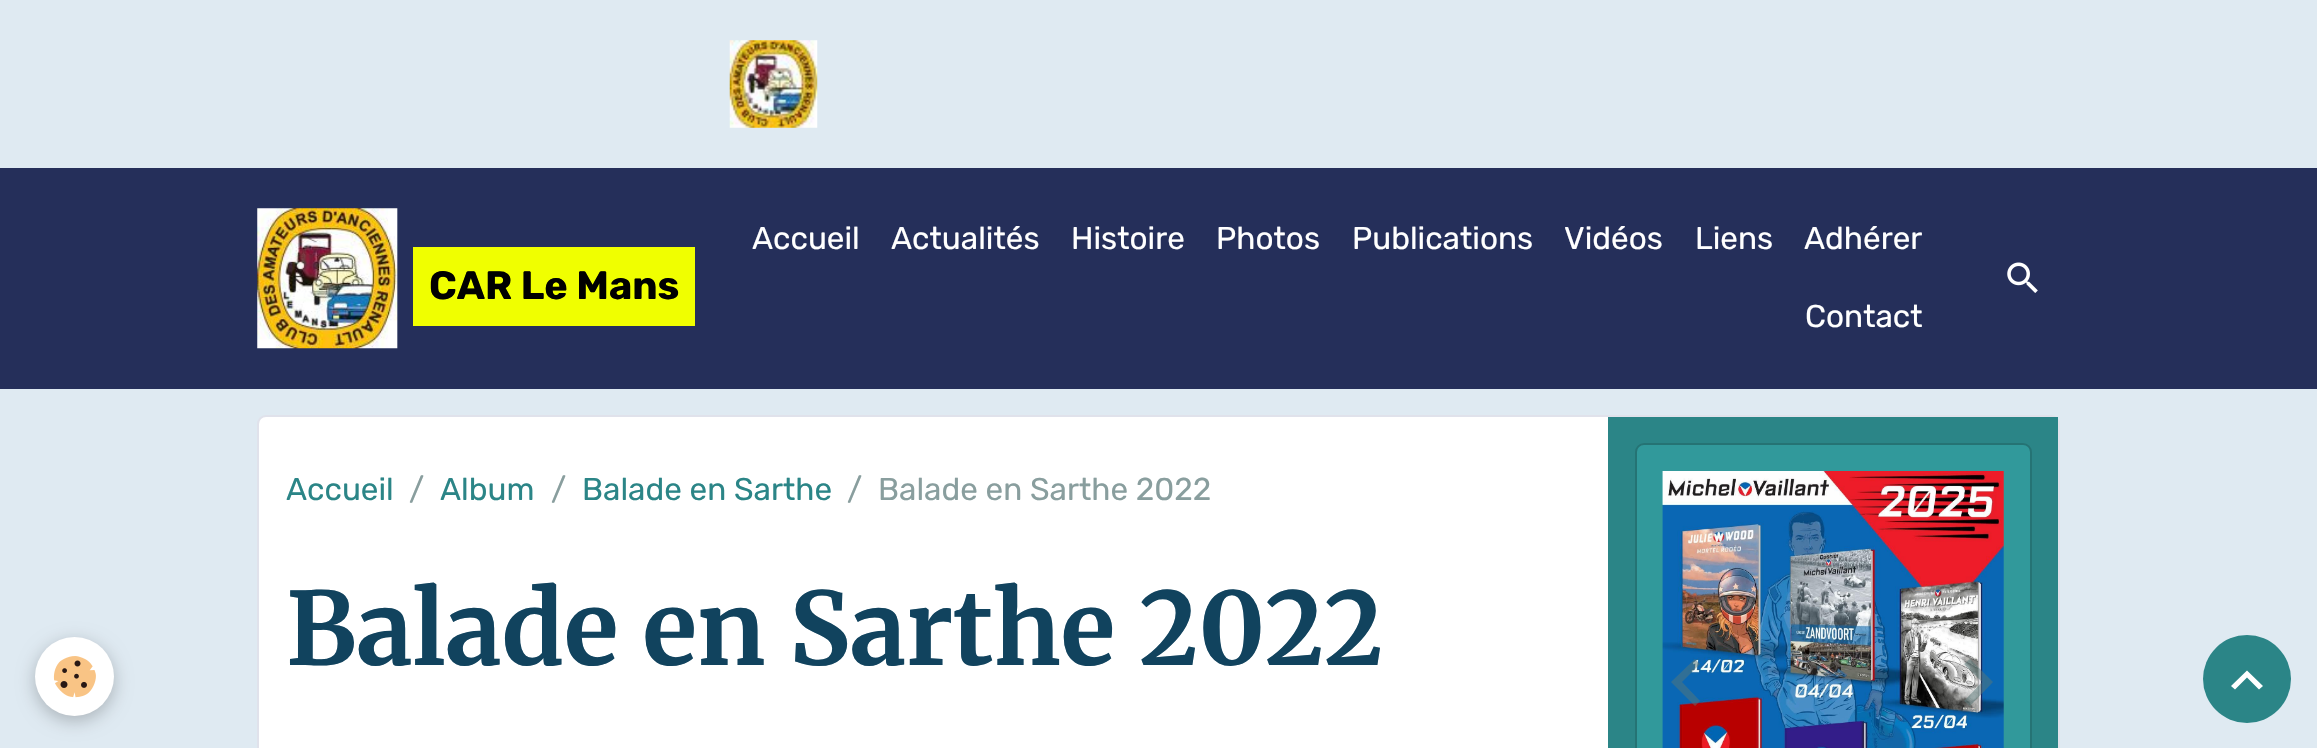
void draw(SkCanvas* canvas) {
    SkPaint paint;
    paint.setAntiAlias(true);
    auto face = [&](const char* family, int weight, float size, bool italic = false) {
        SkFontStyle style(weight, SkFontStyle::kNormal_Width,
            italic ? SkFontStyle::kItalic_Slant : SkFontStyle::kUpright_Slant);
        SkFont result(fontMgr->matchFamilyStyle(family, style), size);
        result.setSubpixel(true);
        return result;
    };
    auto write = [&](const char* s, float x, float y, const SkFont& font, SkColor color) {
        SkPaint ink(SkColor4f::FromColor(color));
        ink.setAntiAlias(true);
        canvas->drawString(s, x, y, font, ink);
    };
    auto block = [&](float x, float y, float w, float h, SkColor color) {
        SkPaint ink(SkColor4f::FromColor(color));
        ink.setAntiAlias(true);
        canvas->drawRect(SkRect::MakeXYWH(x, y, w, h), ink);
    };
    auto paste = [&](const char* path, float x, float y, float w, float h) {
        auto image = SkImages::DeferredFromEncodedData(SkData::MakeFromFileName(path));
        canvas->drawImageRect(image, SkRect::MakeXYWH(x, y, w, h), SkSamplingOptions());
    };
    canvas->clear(SkColorSetRGB(223, 234, 242));
    paste("pic1.png", 729, 40, 89, 88);
    block(0, 168, 2317, 221, SkColorSetRGB(37, 47, 90));
    paste("pic2.png", 257, 208, 141, 141);
    block(413, 247, 282, 79, SkColorSetRGB(240, 255, 0));
    auto kFont1 = face("Rubik", 700, 39.5f);
    write("CAR Le Mans", 429, 299, kFont1, SK_ColorBLACK);
    auto kFont2 = face("Rubik", 400, 31.5f);
    write("Accueil", 752, 249, kFont2, SK_ColorWHITE);
    write("Actualités", 891, 249, kFont2, SK_ColorWHITE);
    write("Histoire", 1071, 249, kFont2, SK_ColorWHITE);
    write("Photos", 1216, 249, kFont2, SK_ColorWHITE);
    write("Publications", 1352, 249, kFont2, SK_ColorWHITE);
    write("Vidéos", 1564, 249, kFont2, SK_ColorWHITE);
    write("Liens", 1695, 249, kFont2, SK_ColorWHITE);
    write("Adhérer", 1804, 249, kFont2, SK_ColorWHITE);
    write("Contact", 1805, 327, kFont2, SK_ColorWHITE);
    paste("pic3.png", 2007, 262, 31, 31);
    paint.setColor(SK_ColorWHITE);
    canvas->drawRoundRect(SkRect::MakeXYWH(258, 416, 1801, 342), 8, 8, paint);
    paint.setStyle(SkPaint::kStroke_Style);
    paint.setStrokeWidth(2);
    paint.setColor(SkColorSetRGB(224, 226, 235));
    canvas->drawRoundRect(SkRect::MakeXYWH(258, 416, 1801, 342), 8, 8, paint);
    write("Accueil", 286, 500, kFont2, SkColorSetRGB(43, 133, 135));
    write("/", 409, 500, kFont2, SkColorSetRGB(137, 158, 158));
    write("Album", 440, 500, kFont2, SkColorSetRGB(43, 133, 135));
    write("/", 551, 500, kFont2, SkColorSetRGB(137, 158, 158));
    write("Balade en Sarthe", 582, 500, kFont2, SkColorSetRGB(43, 133, 135));
    write("/", 847, 500, kFont2, SkColorSetRGB(137, 158, 158));
    write("Balade en Sarthe 2022", 878, 500, kFont2, SkColorSetRGB(137, 158, 158));
    auto kFont3 = face("Merriweather", 700, 100.75f);
    write("Balade en Sarthe 2022", 286, 665, kFont3, SkColorSetRGB(17, 67, 94));
    block(1608, 417, 450, 331, SkColorSetRGB(43, 133, 135));
    paint.setStyle(SkPaint::kFill_Style);
    paint.setColor(SkColorSetRGB(49, 153, 155));
    canvas->drawRoundRect(SkRect::MakeXYWH(1636, 444, 395, 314), 8, 8, paint);
    paint.setStyle(SkPaint::kStroke_Style);
    paint.setColor(SkColorSetRGB(37, 115, 116));
    canvas->drawRoundRect(SkRect::MakeXYWH(1636, 444, 395, 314), 8, 8, paint);
    paste("pic4.png", 1662, 471, 342, 277);
    paint.setStyle(SkPaint::kFill_Style);
    paint.setColor(SkColorSetARGB(128, 87, 117, 117));
    canvas->drawPath(SkPathBuilder().moveTo(1700, 664).lineTo(1682, 682).lineTo(1700, 701).lineTo(1695, 706).lineTo(1671, 682).lineTo(1695, 659).close().detach(), paint);
    canvas->drawPath(SkPathBuilder().moveTo(1970, 659).lineTo(1993, 682).lineTo(1970, 706).lineTo(1964, 701).lineTo(1982, 682).lineTo(1964, 664).close().detach(), paint);
    paint.setColor(SkColorSetARGB(61, 0, 0, 0));
    paint.setMaskFilter(SkMaskFilter::MakeBlur(kNormal_SkBlurStyle, 9));
    canvas->drawRoundRect(SkRect::MakeXYWH(35, 642, 79, 79), 39.5f, 39.5f, paint);
    paint.setMaskFilter(nullptr);
    paint.setColor(SK_ColorWHITE);
    canvas->drawCircle(74.5f, 676.5f, 39.5f, paint);
    paste("pic5.png", 53, 656, 43, 42);
    paint.setColor(SkColorSetRGB(43, 133, 135));
    canvas->drawCircle(2247, 679, 44, paint);
    paint.setColor(SK_ColorWHITE);
    canvas->drawPath(SkPathBuilder().moveTo(2247, 670.5f).lineTo(2263, 686).lineTo(2259, 689.5f).lineTo(2247, 677.5f).lineTo(2235, 689.5f).lineTo(2231, 686).close().detach(), paint);
}
